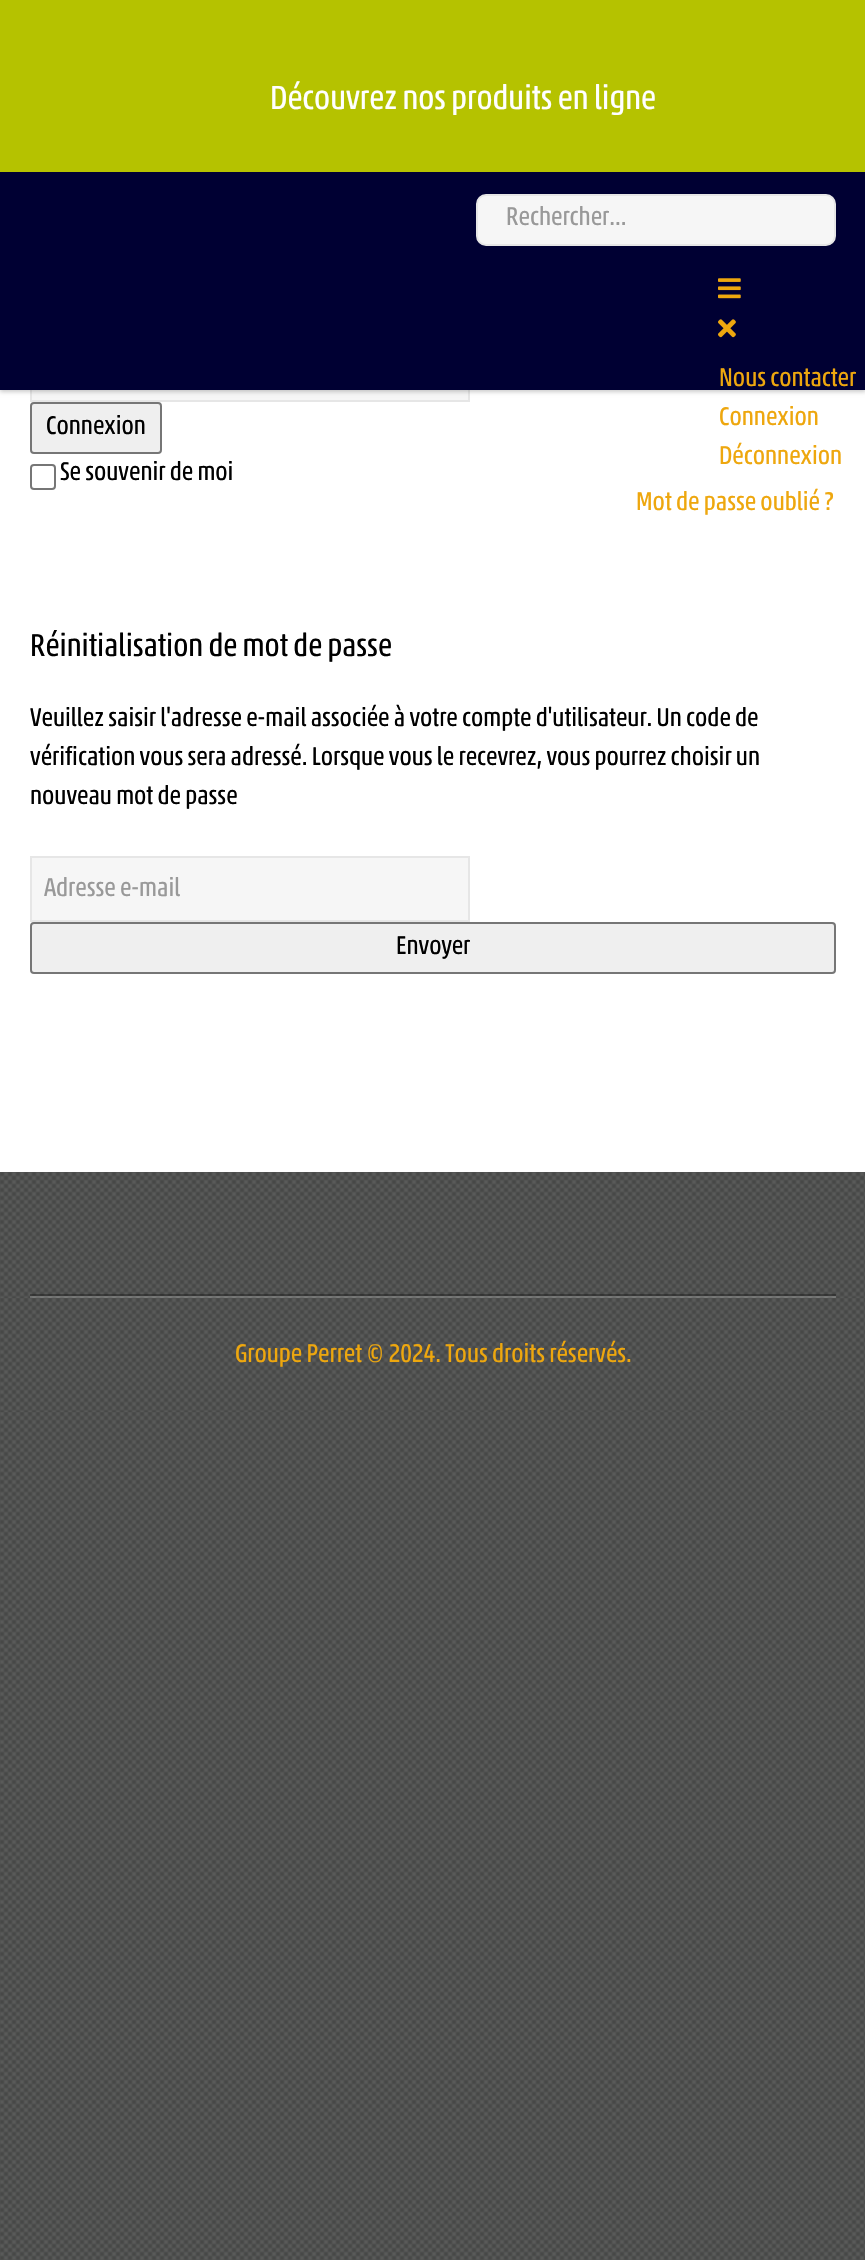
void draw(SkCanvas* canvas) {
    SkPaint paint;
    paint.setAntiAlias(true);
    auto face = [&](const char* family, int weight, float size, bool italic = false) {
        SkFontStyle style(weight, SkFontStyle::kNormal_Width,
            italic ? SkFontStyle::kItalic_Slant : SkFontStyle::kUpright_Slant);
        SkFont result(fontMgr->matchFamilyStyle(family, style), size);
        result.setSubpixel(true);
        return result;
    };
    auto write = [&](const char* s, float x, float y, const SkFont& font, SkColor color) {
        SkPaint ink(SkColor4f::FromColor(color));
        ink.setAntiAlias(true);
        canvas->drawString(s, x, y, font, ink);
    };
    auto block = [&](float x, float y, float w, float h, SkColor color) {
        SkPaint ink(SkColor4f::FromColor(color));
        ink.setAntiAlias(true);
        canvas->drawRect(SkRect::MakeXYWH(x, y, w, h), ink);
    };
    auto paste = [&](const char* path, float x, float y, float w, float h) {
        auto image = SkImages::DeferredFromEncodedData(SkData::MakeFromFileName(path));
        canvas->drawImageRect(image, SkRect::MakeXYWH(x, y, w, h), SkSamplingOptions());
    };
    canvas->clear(SkColorSetRGB(76, 77, 76));
    paste("pic1.png", 0, 1412, 865, 848);
    block(0, 390, 865, 782, SK_ColorWHITE);
    block(32, 390, 436, 10, SkColorSetRGB(246, 246, 246));
    paint.setStyle(SkPaint::kStroke_Style);
    paint.setStrokeWidth(2);
    paint.setColor(SkColorSetRGB(230, 230, 230));
    canvas->drawRect(SkRect::MakeXYWH(31, 337, 438, 64), paint);
    paint.setStyle(SkPaint::kFill_Style);
    paint.setColor(SkColorSetARGB(51, 0, 0, 0));
    paint.setMaskFilter(SkMaskFilter::MakeBlur(kNormal_SkBlurStyle, 2));
    canvas->drawRect(SkRect::MakeXYWH(0, 134, 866, 258), paint);
    paint.setMaskFilter(nullptr);
    block(0, 0, 865, 172, SkColorSetRGB(181, 194, 0));
    auto kFont1 = face("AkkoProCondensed", 400, 34);
    write("Découvrez nos produits en ligne", 270, 109, kFont1, SK_ColorWHITE);
    block(0, 172, 865, 218, SkColorSetRGB(0, 0, 51));
    paint.setColor(SkColorSetRGB(246, 246, 246));
    canvas->drawRoundRect(SkRect::MakeXYWH(477, 195, 358, 50), 9, 9, paint);
    paint.setStyle(SkPaint::kStroke_Style);
    paint.setColor(SkColorSetRGB(230, 230, 230));
    canvas->drawRoundRect(SkRect::MakeXYWH(477, 195, 358, 50), 9, 9, paint);
    auto kFont2 = face("AkkoProCondensed", 400, 26);
    write("Rechercher...", 506, 225, kFont2, SkColorSetRGB(153, 153, 153));
    paste("pic2.png", 718, 278, 23, 21);
    paste("pic3.png", 718, 319, 18, 19);
    write("Nous contacter", 719, 386, kFont2, SkColorSetRGB(238, 167, 14));
    write("Connexion", 719, 425, kFont2, SkColorSetRGB(238, 167, 14));
    write("Déconnexion", 719, 464, kFont2, SkColorSetRGB(238, 167, 14));
    paint.setStyle(SkPaint::kFill_Style);
    paint.setColor(SkColorSetRGB(239, 239, 239));
    canvas->drawRoundRect(SkRect::MakeXYWH(31, 403, 130, 50), 3, 3, paint);
    paint.setStyle(SkPaint::kStroke_Style);
    paint.setColor(SkColorSetRGB(118, 118, 118));
    canvas->drawRoundRect(SkRect::MakeXYWH(31, 403, 130, 50), 3, 3, paint);
    write("Connexion", 46, 434, kFont2, SK_ColorBLACK);
    canvas->drawRoundRect(SkRect::MakeXYWH(31, 465, 24, 24), 3, 3, paint);
    write("Se souvenir de moi", 60, 480, kFont2, SK_ColorBLACK);
    write("Mot de passe oublié ?", 636, 510, kFont2, SkColorSetRGB(238, 167, 14));
    auto kFont3 = face("AkkoProCondensed", 400, 32);
    write("Réinitialisation de mot de passe", 30, 656, kFont3, SK_ColorBLACK);
    write("Veuillez saisir l'adresse e-mail associée à votre compte d'utilisateur. Un code de", 30, 726, kFont2, SK_ColorBLACK);
    write("vérification vous sera adressé. Lorsque vous le recevrez, vous pourrez choisir un", 30, 765, kFont2, SK_ColorBLACK);
    write("nouveau mot de passe", 30, 804, kFont2, SK_ColorBLACK);
    paint.setStyle(SkPaint::kFill_Style);
    paint.setColor(SkColorSetRGB(246, 246, 246));
    canvas->drawRect(SkRect::MakeXYWH(31, 857, 438, 64), paint);
    paint.setStyle(SkPaint::kStroke_Style);
    paint.setColor(SkColorSetRGB(230, 230, 230));
    canvas->drawRect(SkRect::MakeXYWH(31, 857, 438, 64), paint);
    write("Adresse e-mail", 44, 896, kFont2, SkColorSetRGB(153, 153, 153));
    paint.setStyle(SkPaint::kFill_Style);
    paint.setColor(SkColorSetRGB(239, 239, 239));
    canvas->drawRoundRect(SkRect::MakeXYWH(31, 923, 804, 50), 3, 3, paint);
    paint.setStyle(SkPaint::kStroke_Style);
    paint.setColor(SkColorSetRGB(118, 118, 118));
    canvas->drawRoundRect(SkRect::MakeXYWH(31, 923, 804, 50), 3, 3, paint);
    write("Envoyer", 396, 954, kFont2, SK_ColorBLACK);
    paste("pic4.png", 0, 1172, 865, 126);
    block(30, 1296, 806, 2, SkColorSetARGB(51, 255, 255, 255));
    block(30, 1294, 806, 2, SkColorSetARGB(77, 0, 0, 0));
    paste("pic5.png", 0, 1298, 865, 114);
    write("Groupe Perret © 2024. Tous droits réservés.", 235, 1362, kFont2, SkColorSetRGB(238, 167, 14));
}
